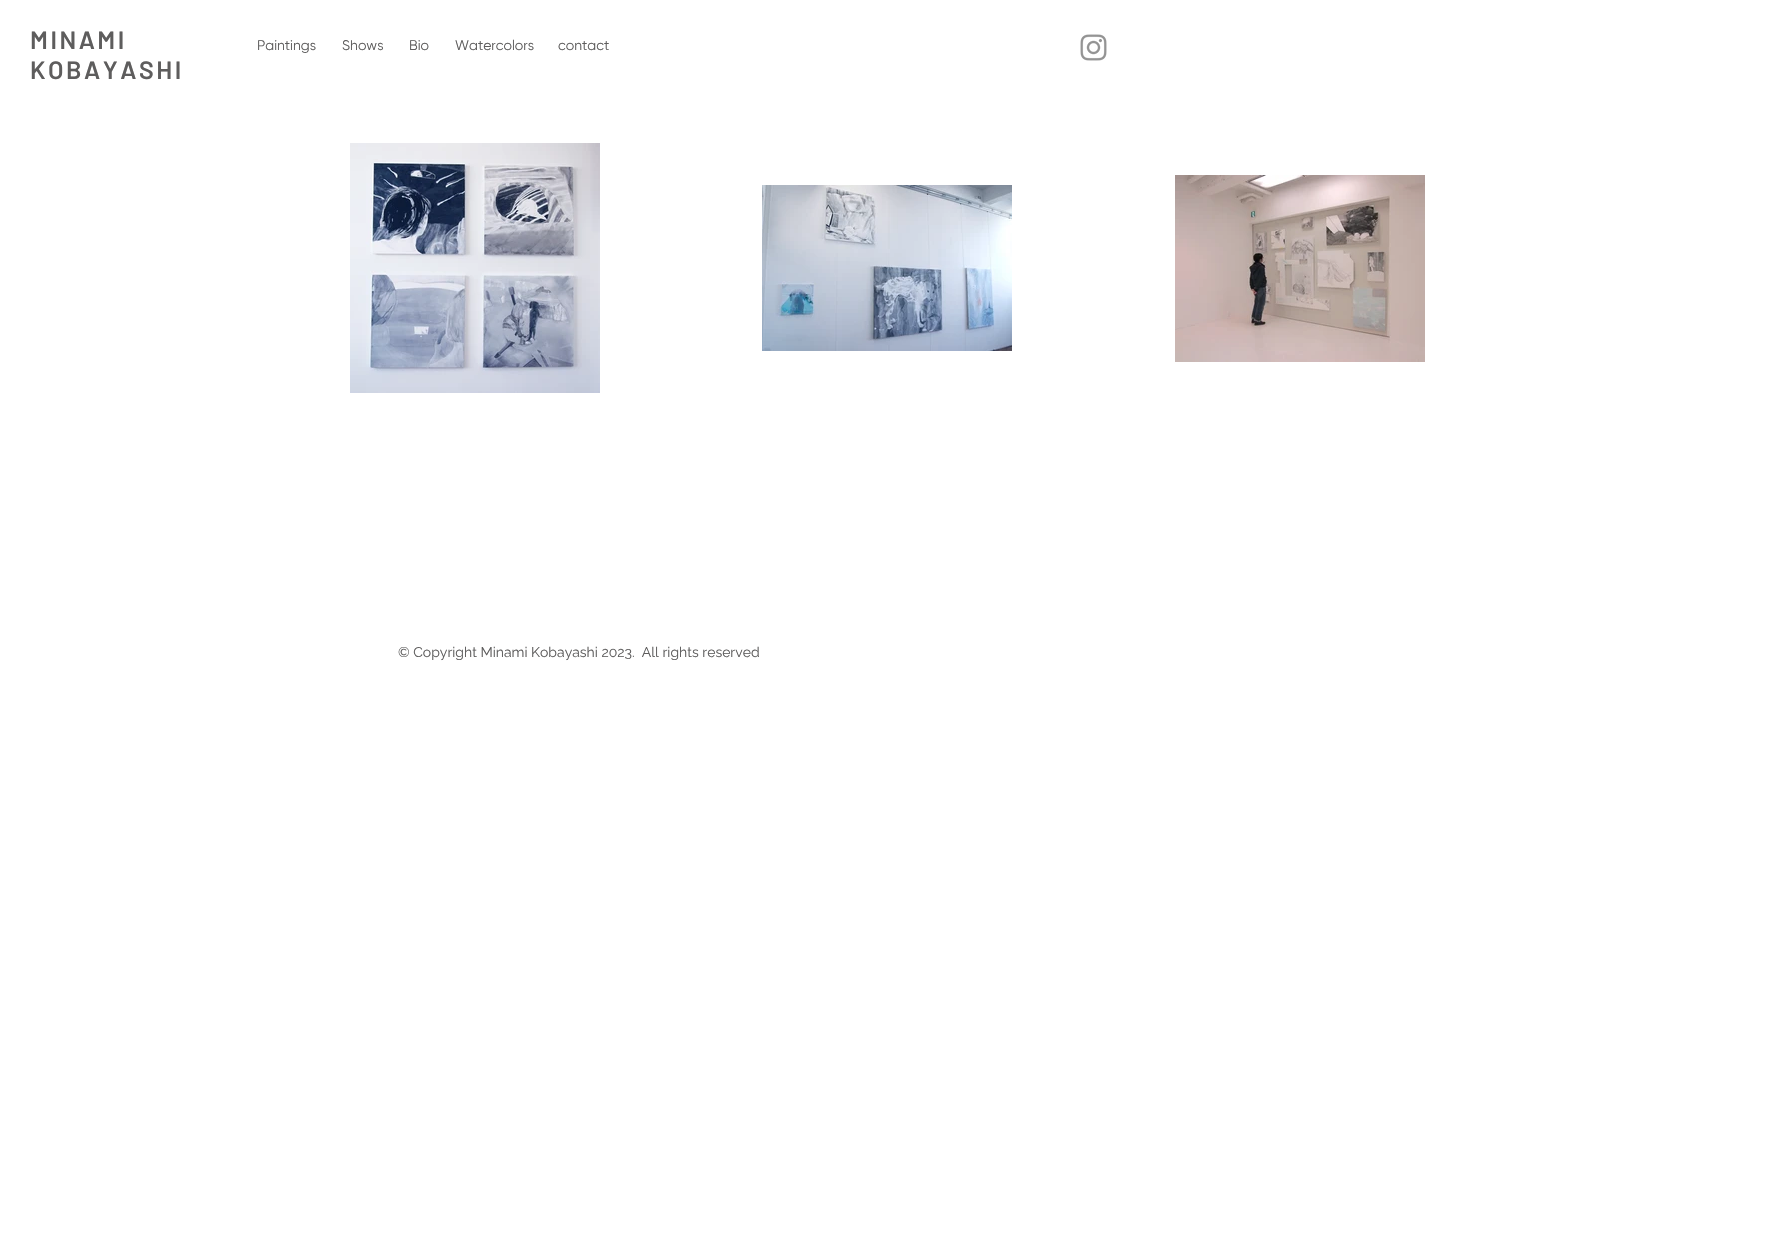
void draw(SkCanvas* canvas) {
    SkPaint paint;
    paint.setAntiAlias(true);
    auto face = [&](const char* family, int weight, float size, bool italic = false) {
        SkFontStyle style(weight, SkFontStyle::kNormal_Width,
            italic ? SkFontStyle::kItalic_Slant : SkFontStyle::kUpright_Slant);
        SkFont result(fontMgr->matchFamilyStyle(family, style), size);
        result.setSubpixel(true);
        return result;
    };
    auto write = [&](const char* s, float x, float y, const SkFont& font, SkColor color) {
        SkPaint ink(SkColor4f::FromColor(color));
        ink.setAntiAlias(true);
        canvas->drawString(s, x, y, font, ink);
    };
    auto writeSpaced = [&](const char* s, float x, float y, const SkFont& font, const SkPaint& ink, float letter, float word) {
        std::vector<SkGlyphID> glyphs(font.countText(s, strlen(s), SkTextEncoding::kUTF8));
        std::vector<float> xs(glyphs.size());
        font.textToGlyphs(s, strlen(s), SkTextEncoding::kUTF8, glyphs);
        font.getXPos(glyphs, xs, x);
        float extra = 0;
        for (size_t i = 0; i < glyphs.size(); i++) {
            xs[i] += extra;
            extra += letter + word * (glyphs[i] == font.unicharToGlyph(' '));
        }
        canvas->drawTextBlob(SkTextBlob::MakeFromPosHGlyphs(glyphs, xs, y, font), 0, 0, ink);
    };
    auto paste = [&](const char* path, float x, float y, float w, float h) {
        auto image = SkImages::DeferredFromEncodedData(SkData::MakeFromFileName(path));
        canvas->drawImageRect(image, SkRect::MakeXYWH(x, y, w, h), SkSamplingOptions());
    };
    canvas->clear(SK_ColorWHITE);
    auto kFont1 = face("Barlow", 600, 25);
    paint.setColor(SkColorSetRGB(94, 93, 93));
    writeSpaced("MINAMI", 30, 49, kFont1, paint, 2.5f, 0);
    writeSpaced("KOBAYASHI", 30, 79, kFont1, paint, 2.5f, 0);
    auto kFont2 = face("Gilroy", 400, 14);
    write("Paintings", 257, 50, kFont2, SkColorSetRGB(94, 93, 93));
    write("Shows", 342, 50, kFont2, SkColorSetRGB(94, 93, 93));
    write("Bio", 409, 50, kFont2, SkColorSetRGB(94, 93, 93));
    write("Watercolors", 455, 50, kFont2, SkColorSetRGB(94, 93, 93));
    write("contact", 558, 50, kFont2, SkColorSetRGB(94, 93, 93));
    paste("pic1.png", 1080, 34, 27, 27);
    paste("pic2.png", 350, 143, 250, 250);
    paste("pic3.png", 762, 185, 250, 166);
    paste("pic4.png", 1175, 175, 250, 187);
    auto kFont3 = face("Raleway", 400, 14);
    write("© Copyright Minami Kobayashi 2023.  All rights reserved", 398, 657, kFont3, SkColorSetRGB(94, 93, 93));
}
